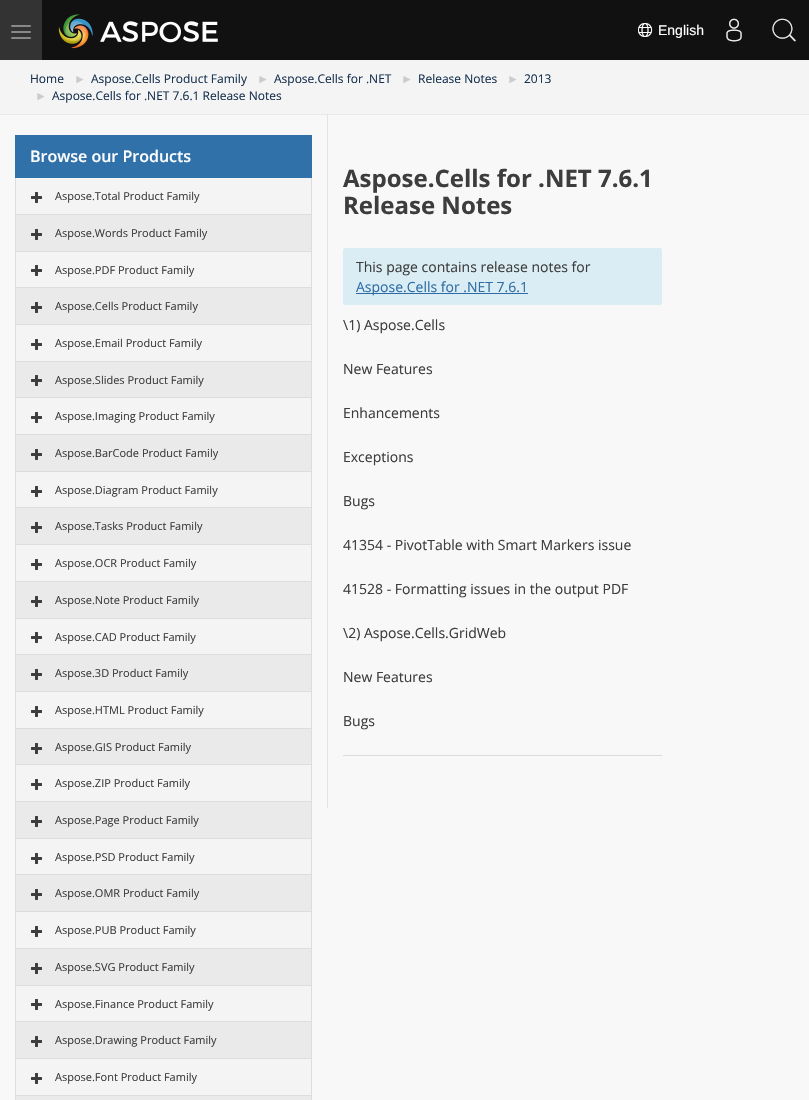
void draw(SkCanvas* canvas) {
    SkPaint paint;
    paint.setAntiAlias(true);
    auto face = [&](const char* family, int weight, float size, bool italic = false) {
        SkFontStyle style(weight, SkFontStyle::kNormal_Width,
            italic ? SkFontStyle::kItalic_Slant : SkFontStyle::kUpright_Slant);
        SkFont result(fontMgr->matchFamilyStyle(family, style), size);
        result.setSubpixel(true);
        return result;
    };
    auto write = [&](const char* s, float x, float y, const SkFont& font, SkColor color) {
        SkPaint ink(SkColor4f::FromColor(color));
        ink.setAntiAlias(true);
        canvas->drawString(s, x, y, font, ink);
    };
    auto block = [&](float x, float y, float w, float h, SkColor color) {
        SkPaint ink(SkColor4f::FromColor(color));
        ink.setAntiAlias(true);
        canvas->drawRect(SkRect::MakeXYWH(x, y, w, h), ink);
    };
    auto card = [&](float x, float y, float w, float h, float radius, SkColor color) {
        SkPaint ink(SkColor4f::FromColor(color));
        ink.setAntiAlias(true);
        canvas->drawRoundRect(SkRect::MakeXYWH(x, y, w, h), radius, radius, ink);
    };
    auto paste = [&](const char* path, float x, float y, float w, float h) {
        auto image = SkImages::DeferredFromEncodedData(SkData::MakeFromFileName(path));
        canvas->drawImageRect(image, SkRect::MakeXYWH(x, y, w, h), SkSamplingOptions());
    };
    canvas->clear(SkColorSetRGB(244, 244, 244));
    block(42, 0, 767, 60, SkColorSetRGB(17, 17, 17));
    block(0, 0, 42, 60, SkColorSetRGB(51, 51, 51));
    card(11, 25, 20, 2, 1, SkColorSetRGB(136, 136, 136));
    card(11, 31, 20, 2, 1, SkColorSetRGB(136, 136, 136));
    card(11, 37, 20, 2, 1, SkColorSetRGB(136, 136, 136));
    paste("pic1.png", 58, 14, 160, 35);
    paste("pic2.png", 638, 23, 15, 14);
    auto kFont1 = face("Liberation Sans", 400, 14);
    write("English", 658, 35, kFont1, SK_ColorWHITE);
    paste("pic3.png", 726, 18, 16, 24);
    paste("pic4.png", 772, 18, 24, 24);
    block(0, 114, 809, 1, SkColorSetRGB(233, 233, 233));
    auto kFont2 = face("Open Sans", 400, 12);
    write("Home", 30, 83, kFont2, SkColorSetRGB(23, 49, 79));
    auto kFont3 = face("Liberation Sans", 400, 12);
    write("►", 74, 83, kFont3, SkColorSetRGB(204, 204, 204));
    write("Aspose.Cells Product Family", 91, 83, kFont2, SkColorSetRGB(23, 49, 79));
    write("►", 257, 83, kFont3, SkColorSetRGB(204, 204, 204));
    write("Aspose.Cells for .NET", 274, 83, kFont2, SkColorSetRGB(23, 49, 79));
    write("►", 401, 83, kFont3, SkColorSetRGB(204, 204, 204));
    write("Release Notes", 418, 83, kFont2, SkColorSetRGB(23, 49, 79));
    write("►", 507, 83, kFont3, SkColorSetRGB(204, 204, 204));
    write("2013", 524, 83, kFont2, SkColorSetRGB(23, 49, 79));
    write("►", 35, 100, kFont3, SkColorSetRGB(204, 204, 204));
    write("Aspose.Cells for .NET 7.6.1 Release Notes", 52, 100, kFont2, SkColorSetRGB(23, 49, 79));
    block(0, 115, 809, 985, SkColorSetRGB(248, 248, 248));
    block(15, 135, 297, 43, SkColorSetRGB(48, 113, 169));
    auto kFont4 = face("Open Sans", 600, 16);
    write("Browse our Products", 30, 162, kFont4, SK_ColorWHITE);
    block(16, 178, 295, 36, SkColorSetRGB(244, 244, 244));
    block(311, 178, 1, 37, SkColorSetRGB(221, 221, 221));
    block(15, 178, 1, 37, SkColorSetRGB(221, 221, 221));
    paste("pic5.png", 31, 192, 11, 11);
    auto kFont5 = face("Open Sans", 400, 11);
    write("Aspose.Total Product Family", 55, 200, kFont5, SkColorSetRGB(61, 61, 61));
    paint.setColor(SkColorSetRGB(234, 234, 234));
    canvas->drawRect(SkRect::MakeXYWH(15.5f, 214.5f, 296, 37), paint);
    paint.setStyle(SkPaint::kStroke_Style);
    paint.setStrokeWidth(1);
    paint.setColor(SkColorSetRGB(221, 221, 221));
    canvas->drawRect(SkRect::MakeXYWH(15.5f, 214.5f, 296, 37), paint);
    paste("pic6.png", 31, 229, 11, 11);
    write("Aspose.Words Product Family", 55, 237, kFont5, SkColorSetRGB(61, 61, 61));
    paint.setStyle(SkPaint::kFill_Style);
    paint.setColor(SkColorSetRGB(244, 244, 244));
    canvas->drawRect(SkRect::MakeXYWH(15.5f, 251.5f, 296, 36), paint);
    paint.setStyle(SkPaint::kStroke_Style);
    paint.setColor(SkColorSetRGB(221, 221, 221));
    canvas->drawRect(SkRect::MakeXYWH(15.5f, 251.5f, 296, 36), paint);
    paste("pic5.png", 31, 265, 11, 11);
    write("Aspose.PDF Product Family", 55, 274, kFont5, SkColorSetRGB(61, 61, 61));
    paint.setStyle(SkPaint::kFill_Style);
    paint.setColor(SkColorSetRGB(234, 234, 234));
    canvas->drawRect(SkRect::MakeXYWH(15.5f, 287.5f, 296, 37), paint);
    paint.setStyle(SkPaint::kStroke_Style);
    paint.setColor(SkColorSetRGB(221, 221, 221));
    canvas->drawRect(SkRect::MakeXYWH(15.5f, 287.5f, 296, 37), paint);
    paste("pic6.png", 31, 302, 11, 11);
    write("Aspose.Cells Product Family", 55, 310, kFont5, SkColorSetRGB(61, 61, 61));
    paint.setStyle(SkPaint::kFill_Style);
    paint.setColor(SkColorSetRGB(244, 244, 244));
    canvas->drawRect(SkRect::MakeXYWH(15.5f, 324.5f, 296, 37), paint);
    paint.setStyle(SkPaint::kStroke_Style);
    paint.setColor(SkColorSetRGB(221, 221, 221));
    canvas->drawRect(SkRect::MakeXYWH(15.5f, 324.5f, 296, 37), paint);
    paste("pic5.png", 31, 339, 11, 11);
    write("Aspose.Email Product Family", 55, 347, kFont5, SkColorSetRGB(61, 61, 61));
    paint.setStyle(SkPaint::kFill_Style);
    paint.setColor(SkColorSetRGB(234, 234, 234));
    canvas->drawRect(SkRect::MakeXYWH(15.5f, 361.5f, 296, 36), paint);
    paint.setStyle(SkPaint::kStroke_Style);
    paint.setColor(SkColorSetRGB(221, 221, 221));
    canvas->drawRect(SkRect::MakeXYWH(15.5f, 361.5f, 296, 36), paint);
    paste("pic6.png", 31, 375, 11, 11);
    write("Aspose.Slides Product Family", 55, 384, kFont5, SkColorSetRGB(61, 61, 61));
    paint.setStyle(SkPaint::kFill_Style);
    paint.setColor(SkColorSetRGB(244, 244, 244));
    canvas->drawRect(SkRect::MakeXYWH(15.5f, 397.5f, 296, 37), paint);
    paint.setStyle(SkPaint::kStroke_Style);
    paint.setColor(SkColorSetRGB(221, 221, 221));
    canvas->drawRect(SkRect::MakeXYWH(15.5f, 397.5f, 296, 37), paint);
    paste("pic5.png", 31, 412, 11, 11);
    write("Aspose.Imaging Product Family", 55, 420, kFont5, SkColorSetRGB(61, 61, 61));
    paint.setStyle(SkPaint::kFill_Style);
    paint.setColor(SkColorSetRGB(234, 234, 234));
    canvas->drawRect(SkRect::MakeXYWH(15.5f, 434.5f, 296, 37), paint);
    paint.setStyle(SkPaint::kStroke_Style);
    paint.setColor(SkColorSetRGB(221, 221, 221));
    canvas->drawRect(SkRect::MakeXYWH(15.5f, 434.5f, 296, 37), paint);
    paste("pic6.png", 31, 449, 11, 11);
    write("Aspose.BarCode Product Family", 55, 457, kFont5, SkColorSetRGB(61, 61, 61));
    paint.setStyle(SkPaint::kFill_Style);
    paint.setColor(SkColorSetRGB(244, 244, 244));
    canvas->drawRect(SkRect::MakeXYWH(15.5f, 471.5f, 296, 36), paint);
    paint.setStyle(SkPaint::kStroke_Style);
    paint.setColor(SkColorSetRGB(221, 221, 221));
    canvas->drawRect(SkRect::MakeXYWH(15.5f, 471.5f, 296, 36), paint);
    paste("pic5.png", 31, 486, 11, 11);
    write("Aspose.Diagram Product Family", 55, 494, kFont5, SkColorSetRGB(61, 61, 61));
    paint.setStyle(SkPaint::kFill_Style);
    paint.setColor(SkColorSetRGB(234, 234, 234));
    canvas->drawRect(SkRect::MakeXYWH(15.5f, 507.5f, 296, 37), paint);
    paint.setStyle(SkPaint::kStroke_Style);
    paint.setColor(SkColorSetRGB(221, 221, 221));
    canvas->drawRect(SkRect::MakeXYWH(15.5f, 507.5f, 296, 37), paint);
    paste("pic6.png", 31, 522, 11, 11);
    write("Aspose.Tasks Product Family", 55, 530, kFont5, SkColorSetRGB(61, 61, 61));
    paint.setStyle(SkPaint::kFill_Style);
    paint.setColor(SkColorSetRGB(244, 244, 244));
    canvas->drawRect(SkRect::MakeXYWH(15.5f, 544.5f, 296, 37), paint);
    paint.setStyle(SkPaint::kStroke_Style);
    paint.setColor(SkColorSetRGB(221, 221, 221));
    canvas->drawRect(SkRect::MakeXYWH(15.5f, 544.5f, 296, 37), paint);
    paste("pic5.png", 31, 559, 11, 11);
    write("Aspose.OCR Product Family", 55, 567, kFont5, SkColorSetRGB(61, 61, 61));
    paint.setStyle(SkPaint::kFill_Style);
    paint.setColor(SkColorSetRGB(234, 234, 234));
    canvas->drawRect(SkRect::MakeXYWH(15.5f, 581.5f, 296, 37), paint);
    paint.setStyle(SkPaint::kStroke_Style);
    paint.setColor(SkColorSetRGB(221, 221, 221));
    canvas->drawRect(SkRect::MakeXYWH(15.5f, 581.5f, 296, 37), paint);
    paste("pic6.png", 31, 596, 11, 11);
    write("Aspose.Note Product Family", 55, 604, kFont5, SkColorSetRGB(61, 61, 61));
    paint.setStyle(SkPaint::kFill_Style);
    paint.setColor(SkColorSetRGB(244, 244, 244));
    canvas->drawRect(SkRect::MakeXYWH(15.5f, 618.5f, 296, 36), paint);
    paint.setStyle(SkPaint::kStroke_Style);
    paint.setColor(SkColorSetRGB(221, 221, 221));
    canvas->drawRect(SkRect::MakeXYWH(15.5f, 618.5f, 296, 36), paint);
    paste("pic5.png", 31, 632, 11, 11);
    write("Aspose.CAD Product Family", 55, 641, kFont5, SkColorSetRGB(61, 61, 61));
    paint.setStyle(SkPaint::kFill_Style);
    paint.setColor(SkColorSetRGB(234, 234, 234));
    canvas->drawRect(SkRect::MakeXYWH(15.5f, 654.5f, 296, 37), paint);
    paint.setStyle(SkPaint::kStroke_Style);
    paint.setColor(SkColorSetRGB(221, 221, 221));
    canvas->drawRect(SkRect::MakeXYWH(15.5f, 654.5f, 296, 37), paint);
    paste("pic6.png", 31, 669, 11, 11);
    write("Aspose.3D Product Family", 55, 677, kFont5, SkColorSetRGB(61, 61, 61));
    paint.setStyle(SkPaint::kFill_Style);
    paint.setColor(SkColorSetRGB(244, 244, 244));
    canvas->drawRect(SkRect::MakeXYWH(15.5f, 691.5f, 296, 37), paint);
    paint.setStyle(SkPaint::kStroke_Style);
    paint.setColor(SkColorSetRGB(221, 221, 221));
    canvas->drawRect(SkRect::MakeXYWH(15.5f, 691.5f, 296, 37), paint);
    paste("pic5.png", 31, 706, 11, 11);
    write("Aspose.HTML Product Family", 55, 714, kFont5, SkColorSetRGB(61, 61, 61));
    paint.setStyle(SkPaint::kFill_Style);
    paint.setColor(SkColorSetRGB(234, 234, 234));
    canvas->drawRect(SkRect::MakeXYWH(15.5f, 728.5f, 296, 36), paint);
    paint.setStyle(SkPaint::kStroke_Style);
    paint.setColor(SkColorSetRGB(221, 221, 221));
    canvas->drawRect(SkRect::MakeXYWH(15.5f, 728.5f, 296, 36), paint);
    paste("pic6.png", 31, 743, 11, 11);
    write("Aspose.GIS Product Family", 55, 751, kFont5, SkColorSetRGB(61, 61, 61));
    paint.setStyle(SkPaint::kFill_Style);
    paint.setColor(SkColorSetRGB(244, 244, 244));
    canvas->drawRect(SkRect::MakeXYWH(15.5f, 764.5f, 296, 37), paint);
    paint.setStyle(SkPaint::kStroke_Style);
    paint.setColor(SkColorSetRGB(221, 221, 221));
    canvas->drawRect(SkRect::MakeXYWH(15.5f, 764.5f, 296, 37), paint);
    paste("pic5.png", 31, 779, 11, 11);
    write("Aspose.ZIP Product Family", 55, 787, kFont5, SkColorSetRGB(61, 61, 61));
    paint.setStyle(SkPaint::kFill_Style);
    paint.setColor(SkColorSetRGB(234, 234, 234));
    canvas->drawRect(SkRect::MakeXYWH(15.5f, 801.5f, 296, 37), paint);
    paint.setStyle(SkPaint::kStroke_Style);
    paint.setColor(SkColorSetRGB(221, 221, 221));
    canvas->drawRect(SkRect::MakeXYWH(15.5f, 801.5f, 296, 37), paint);
    paste("pic6.png", 31, 816, 11, 11);
    write("Aspose.Page Product Family", 55, 824, kFont5, SkColorSetRGB(61, 61, 61));
    paint.setStyle(SkPaint::kFill_Style);
    paint.setColor(SkColorSetRGB(244, 244, 244));
    canvas->drawRect(SkRect::MakeXYWH(15.5f, 838.5f, 296, 36), paint);
    paint.setStyle(SkPaint::kStroke_Style);
    paint.setColor(SkColorSetRGB(221, 221, 221));
    canvas->drawRect(SkRect::MakeXYWH(15.5f, 838.5f, 296, 36), paint);
    paste("pic5.png", 31, 853, 11, 11);
    write("Aspose.PSD Product Family", 55, 861, kFont5, SkColorSetRGB(61, 61, 61));
    paint.setStyle(SkPaint::kFill_Style);
    paint.setColor(SkColorSetRGB(234, 234, 234));
    canvas->drawRect(SkRect::MakeXYWH(15.5f, 874.5f, 296, 37), paint);
    paint.setStyle(SkPaint::kStroke_Style);
    paint.setColor(SkColorSetRGB(221, 221, 221));
    canvas->drawRect(SkRect::MakeXYWH(15.5f, 874.5f, 296, 37), paint);
    paste("pic6.png", 31, 889, 11, 11);
    write("Aspose.OMR Product Family", 55, 897, kFont5, SkColorSetRGB(61, 61, 61));
    paint.setStyle(SkPaint::kFill_Style);
    paint.setColor(SkColorSetRGB(244, 244, 244));
    canvas->drawRect(SkRect::MakeXYWH(15.5f, 911.5f, 296, 37), paint);
    paint.setStyle(SkPaint::kStroke_Style);
    paint.setColor(SkColorSetRGB(221, 221, 221));
    canvas->drawRect(SkRect::MakeXYWH(15.5f, 911.5f, 296, 37), paint);
    paste("pic5.png", 31, 926, 11, 11);
    write("Aspose.PUB Product Family", 55, 934, kFont5, SkColorSetRGB(61, 61, 61));
    paint.setStyle(SkPaint::kFill_Style);
    paint.setColor(SkColorSetRGB(234, 234, 234));
    canvas->drawRect(SkRect::MakeXYWH(15.5f, 948.5f, 296, 37), paint);
    paint.setStyle(SkPaint::kStroke_Style);
    paint.setColor(SkColorSetRGB(221, 221, 221));
    canvas->drawRect(SkRect::MakeXYWH(15.5f, 948.5f, 296, 37), paint);
    paste("pic6.png", 31, 963, 11, 11);
    write("Aspose.SVG Product Family", 55, 971, kFont5, SkColorSetRGB(61, 61, 61));
    paint.setStyle(SkPaint::kFill_Style);
    paint.setColor(SkColorSetRGB(244, 244, 244));
    canvas->drawRect(SkRect::MakeXYWH(15.5f, 985.5f, 296, 36), paint);
    paint.setStyle(SkPaint::kStroke_Style);
    paint.setColor(SkColorSetRGB(221, 221, 221));
    canvas->drawRect(SkRect::MakeXYWH(15.5f, 985.5f, 296, 36), paint);
    paste("pic5.png", 31, 999, 11, 11);
    write("Aspose.Finance Product Family", 55, 1008, kFont5, SkColorSetRGB(61, 61, 61));
    paint.setStyle(SkPaint::kFill_Style);
    paint.setColor(SkColorSetRGB(234, 234, 234));
    canvas->drawRect(SkRect::MakeXYWH(15.5f, 1021.5f, 296, 37), paint);
    paint.setStyle(SkPaint::kStroke_Style);
    paint.setColor(SkColorSetRGB(221, 221, 221));
    canvas->drawRect(SkRect::MakeXYWH(15.5f, 1021.5f, 296, 37), paint);
    paste("pic6.png", 31, 1036, 11, 11);
    write("Aspose.Drawing Product Family", 55, 1044, kFont5, SkColorSetRGB(61, 61, 61));
    paint.setStyle(SkPaint::kFill_Style);
    paint.setColor(SkColorSetRGB(244, 244, 244));
    canvas->drawRect(SkRect::MakeXYWH(15.5f, 1058.5f, 296, 37), paint);
    paint.setStyle(SkPaint::kStroke_Style);
    paint.setColor(SkColorSetRGB(221, 221, 221));
    canvas->drawRect(SkRect::MakeXYWH(15.5f, 1058.5f, 296, 37), paint);
    paste("pic5.png", 31, 1073, 11, 11);
    write("Aspose.Font Product Family", 55, 1081, kFont5, SkColorSetRGB(61, 61, 61));
    paint.setStyle(SkPaint::kFill_Style);
    paint.setColor(SkColorSetRGB(234, 234, 234));
    canvas->drawRect(SkRect::MakeXYWH(15.5f, 1095.5f, 296, 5), paint);
    paint.setStyle(SkPaint::kStroke_Style);
    paint.setColor(SkColorSetRGB(221, 221, 221));
    canvas->drawRect(SkRect::MakeXYWH(15.5f, 1095.5f, 296, 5), paint);
    block(327, 115, 1, 693, SkColorSetRGB(227, 227, 227));
    auto kFont6 = face("Open Sans", 700, 24);
    write("Aspose.Cells for .NET 7.6.1", 343, 187, kFont6, SkColorSetRGB(61, 61, 61));
    write("Release Notes", 343, 214, kFont6, SkColorSetRGB(61, 61, 61));
    card(343, 248, 319, 57, 2.5f, SkColorSetRGB(218, 237, 245));
    auto kFont7 = face("Open Sans", 400, 14);
    write("This page contains release notes for", 356, 272, kFont7, SkColorSetRGB(61, 61, 61));
    block(356, 293, 172, 1, SkColorSetRGB(46, 109, 164));
    write("Aspose.Cells for .NET 7.6.1", 356, 292, kFont7, SkColorSetRGB(46, 109, 164));
    write("\\1) Aspose.Cells", 343, 330, kFont7, SkColorSetRGB(61, 61, 61));
    write("New Features", 343, 374, kFont7, SkColorSetRGB(61, 61, 61));
    write("Enhancements", 343, 418, kFont7, SkColorSetRGB(61, 61, 61));
    write("Exceptions", 343, 462, kFont7, SkColorSetRGB(61, 61, 61));
    write("Bugs", 343, 506, kFont7, SkColorSetRGB(61, 61, 61));
    write("41354 - PivotTable with Smart Markers issue", 343, 550, kFont7, SkColorSetRGB(61, 61, 61));
    write("41528 - Formatting issues in the output PDF", 343, 594, kFont7, SkColorSetRGB(61, 61, 61));
    write("\\2) Aspose.Cells.GridWeb", 343, 638, kFont7, SkColorSetRGB(61, 61, 61));
    write("New Features", 343, 682, kFont7, SkColorSetRGB(61, 61, 61));
    write("Bugs", 343, 726, kFont7, SkColorSetRGB(61, 61, 61));
    block(343, 755, 319, 1, SkColorSetRGB(219, 219, 219));
}
